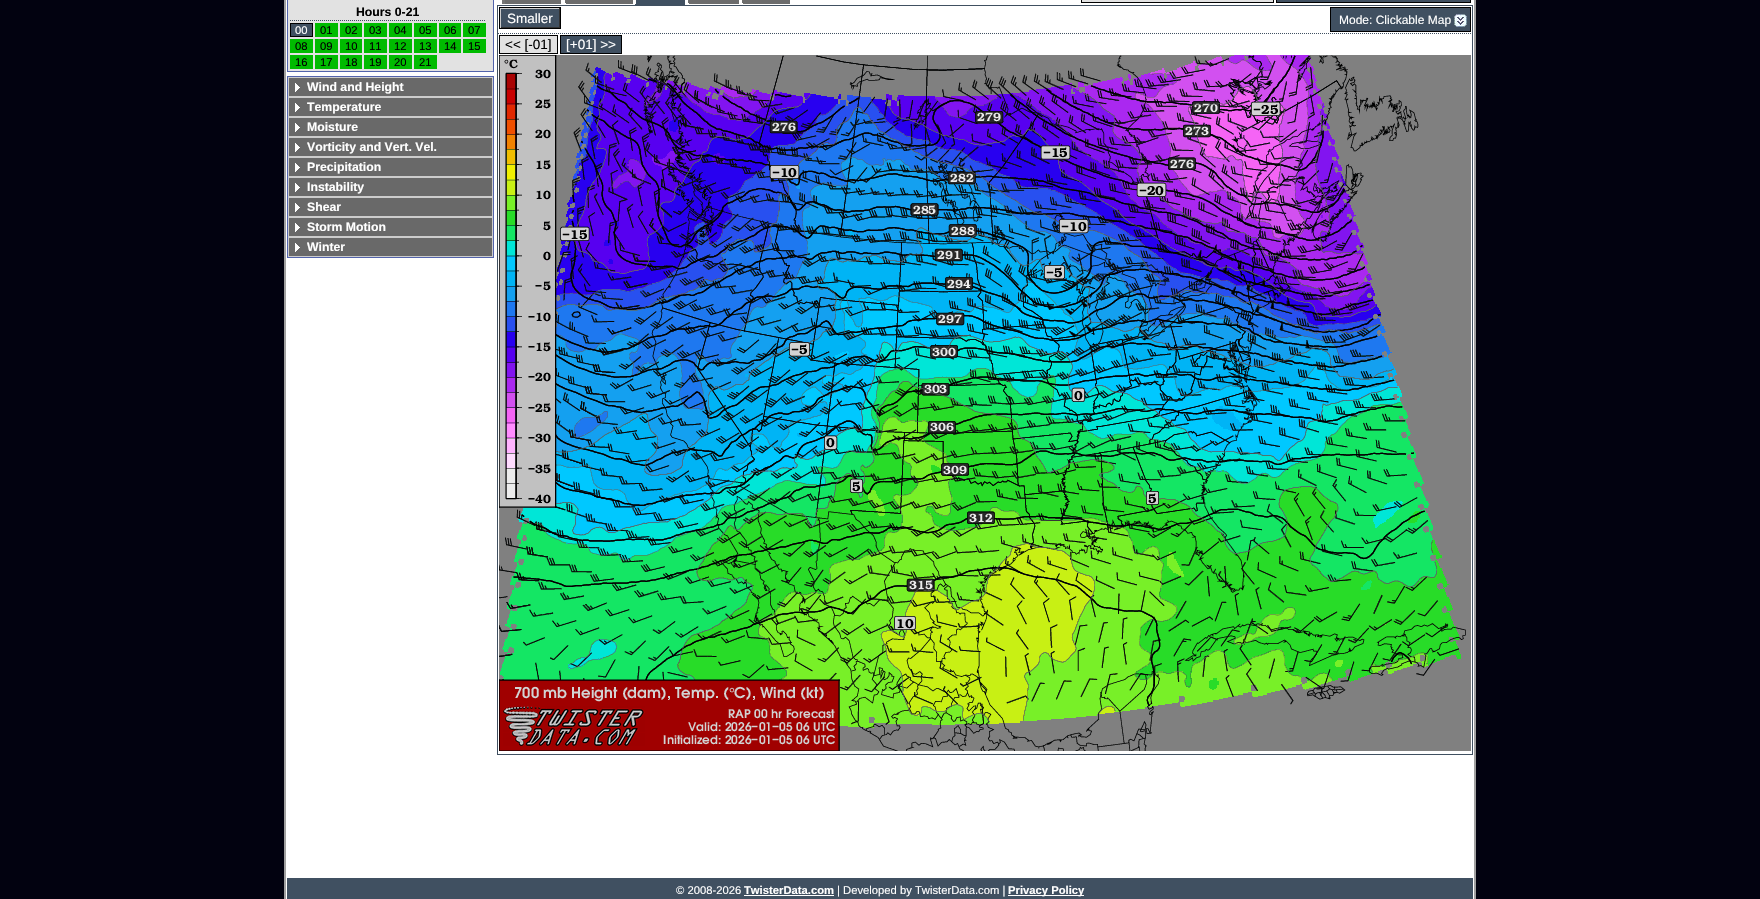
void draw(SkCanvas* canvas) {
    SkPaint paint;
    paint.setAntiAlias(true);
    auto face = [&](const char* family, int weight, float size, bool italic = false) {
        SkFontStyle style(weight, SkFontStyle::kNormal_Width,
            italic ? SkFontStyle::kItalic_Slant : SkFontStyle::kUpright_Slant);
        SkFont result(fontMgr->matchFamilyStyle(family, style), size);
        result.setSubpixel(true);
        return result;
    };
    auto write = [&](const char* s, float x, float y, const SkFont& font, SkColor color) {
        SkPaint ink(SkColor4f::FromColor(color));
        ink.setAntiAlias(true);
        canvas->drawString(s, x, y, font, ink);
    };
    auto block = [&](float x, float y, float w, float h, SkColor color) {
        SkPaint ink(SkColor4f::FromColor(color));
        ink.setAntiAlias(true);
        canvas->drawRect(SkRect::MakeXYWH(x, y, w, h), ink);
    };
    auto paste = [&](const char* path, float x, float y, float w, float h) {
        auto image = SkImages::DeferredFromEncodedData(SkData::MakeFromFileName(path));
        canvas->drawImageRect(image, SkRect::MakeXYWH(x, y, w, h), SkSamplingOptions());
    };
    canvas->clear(SkColorSetRGB(2, 2, 16));
    paint.setColor(SK_ColorWHITE);
    canvas->drawRect(SkRect::MakeXYWH(285, -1, 1190, 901), paint);
    paint.setStyle(SkPaint::kStroke_Style);
    paint.setStrokeWidth(2);
    paint.setColor(SkColorSetRGB(160, 160, 160));
    canvas->drawRect(SkRect::MakeXYWH(285, -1, 1190, 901), paint);
    paint.setStyle(SkPaint::kFill_Style);
    paint.setColor(SkColorSetRGB(226, 226, 226));
    canvas->drawRect(SkRect::MakeXYWH(287.5f, -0.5f, 206, 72), paint);
    paint.setStyle(SkPaint::kStroke_Style);
    paint.setStrokeWidth(1);
    paint.setColor(SkColorSetRGB(82, 99, 171));
    canvas->drawRect(SkRect::MakeXYWH(287.5f, -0.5f, 206, 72), paint);
    paint.setColor(SkColorSetRGB(64, 80, 97));
    paint.setPathEffect(SkDashPathEffect::Make({{1, 1}}, 0));
    canvas->drawPath(SkPathBuilder().moveTo(290, 20.5f).lineTo(486, 20.5f).detach(), paint);
    paint.setPathEffect(nullptr);
    auto kFont1 = face("Liberation Sans", 700, 12.25f);
    write("Hours 0-21", 356, 16, kFont1, SK_ColorBLACK);
    paint.setStyle(SkPaint::kFill_Style);
    canvas->drawRect(SkRect::MakeXYWH(290.5f, 23.5f, 22, 13), paint);
    paint.setStyle(SkPaint::kStroke_Style);
    paint.setColor(SK_ColorBLACK);
    canvas->drawRect(SkRect::MakeXYWH(290.5f, 23.5f, 22, 13), paint);
    auto kFont2 = face("Liberation Sans", 400, 11.25f);
    write("00", 295, 34, kFont2, SK_ColorWHITE);
    block(315, 23, 23, 14, SkColorSetRGB(0, 187, 0));
    write("01", 320, 34, kFont2, SK_ColorBLACK);
    block(340, 23, 22, 14, SkColorSetRGB(0, 187, 0));
    write("02", 345, 34, kFont2, SK_ColorBLACK);
    block(364, 23, 23, 14, SkColorSetRGB(0, 187, 0));
    write("03", 369, 34, kFont2, SK_ColorBLACK);
    block(389, 23, 23, 14, SkColorSetRGB(0, 187, 0));
    write("04", 394, 34, kFont2, SK_ColorBLACK);
    block(414, 23, 23, 14, SkColorSetRGB(0, 187, 0));
    write("05", 419, 34, kFont2, SK_ColorBLACK);
    block(439, 23, 22, 14, SkColorSetRGB(0, 187, 0));
    write("06", 444, 34, kFont2, SK_ColorBLACK);
    block(463, 23, 23, 14, SkColorSetRGB(0, 187, 0));
    write("07", 468, 34, kFont2, SK_ColorBLACK);
    block(290, 39, 23, 14, SkColorSetRGB(0, 187, 0));
    write("08", 295, 50, kFont2, SK_ColorBLACK);
    block(315, 39, 23, 14, SkColorSetRGB(0, 187, 0));
    write("09", 320, 50, kFont2, SK_ColorBLACK);
    block(340, 39, 22, 14, SkColorSetRGB(0, 187, 0));
    write("10", 345, 50, kFont2, SK_ColorBLACK);
    block(364, 39, 23, 14, SkColorSetRGB(0, 187, 0));
    write("11", 369, 50, kFont2, SK_ColorBLACK);
    block(389, 39, 23, 14, SkColorSetRGB(0, 187, 0));
    write("12", 394, 50, kFont2, SK_ColorBLACK);
    block(414, 39, 23, 14, SkColorSetRGB(0, 187, 0));
    write("13", 419, 50, kFont2, SK_ColorBLACK);
    block(439, 39, 22, 14, SkColorSetRGB(0, 187, 0));
    write("14", 444, 50, kFont2, SK_ColorBLACK);
    block(463, 39, 23, 14, SkColorSetRGB(0, 187, 0));
    write("15", 468, 50, kFont2, SK_ColorBLACK);
    block(290, 55, 23, 14, SkColorSetRGB(0, 187, 0));
    write("16", 295, 66, kFont2, SK_ColorBLACK);
    block(315, 55, 23, 14, SkColorSetRGB(0, 187, 0));
    write("17", 320, 66, kFont2, SK_ColorBLACK);
    block(340, 55, 22, 14, SkColorSetRGB(0, 187, 0));
    write("18", 345, 66, kFont2, SK_ColorBLACK);
    block(364, 55, 23, 14, SkColorSetRGB(0, 187, 0));
    write("19", 369, 66, kFont2, SK_ColorBLACK);
    block(389, 55, 23, 14, SkColorSetRGB(0, 187, 0));
    write("20", 394, 66, kFont2, SK_ColorBLACK);
    block(414, 55, 23, 14, SkColorSetRGB(0, 187, 0));
    write("21", 419, 66, kFont2, SK_ColorBLACK);
    paint.setColor(SkColorSetRGB(82, 99, 171));
    canvas->drawRect(SkRect::MakeXYWH(287.5f, 76.5f, 206, 181), paint);
    block(289, 78, 203, 18, SkColorSetRGB(105, 105, 105));
    paste("pic1.png", 295, 83, 5, 9);
    paint.setColor(SkColorSetRGB(204, 204, 204));
    canvas->drawRect(SkRect::MakeXYWH(288.5f, 77.5f, 204, 19), paint);
    write("Wind and Height", 307, 91, kFont1, SK_ColorWHITE);
    block(289, 98, 203, 18, SkColorSetRGB(105, 105, 105));
    paste("pic1.png", 295, 103, 5, 9);
    canvas->drawRect(SkRect::MakeXYWH(288.5f, 97.5f, 204, 19), paint);
    write("Temperature", 307, 111, kFont1, SK_ColorWHITE);
    block(289, 118, 203, 18, SkColorSetRGB(105, 105, 105));
    paste("pic1.png", 295, 123, 5, 9);
    canvas->drawRect(SkRect::MakeXYWH(288.5f, 117.5f, 204, 19), paint);
    write("Moisture", 307, 131, kFont1, SK_ColorWHITE);
    block(289, 138, 203, 18, SkColorSetRGB(105, 105, 105));
    paste("pic1.png", 295, 143, 5, 9);
    canvas->drawRect(SkRect::MakeXYWH(288.5f, 137.5f, 204, 19), paint);
    write("Vorticity and Vert. Vel.", 307, 151, kFont1, SK_ColorWHITE);
    block(289, 158, 203, 18, SkColorSetRGB(105, 105, 105));
    paste("pic1.png", 295, 163, 5, 9);
    canvas->drawRect(SkRect::MakeXYWH(288.5f, 157.5f, 204, 19), paint);
    write("Precipitation", 307, 171, kFont1, SK_ColorWHITE);
    block(289, 178, 203, 18, SkColorSetRGB(105, 105, 105));
    paste("pic1.png", 295, 183, 5, 9);
    canvas->drawRect(SkRect::MakeXYWH(288.5f, 177.5f, 204, 19), paint);
    write("Instability", 307, 191, kFont1, SK_ColorWHITE);
    block(289, 198, 203, 18, SkColorSetRGB(105, 105, 105));
    paste("pic1.png", 295, 203, 5, 9);
    canvas->drawRect(SkRect::MakeXYWH(288.5f, 197.5f, 204, 19), paint);
    write("Shear", 307, 211, kFont1, SK_ColorWHITE);
    block(289, 218, 203, 18, SkColorSetRGB(105, 105, 105));
    paste("pic1.png", 295, 223, 5, 9);
    canvas->drawRect(SkRect::MakeXYWH(288.5f, 217.5f, 204, 19), paint);
    write("Storm Motion", 307, 231, kFont1, SK_ColorWHITE);
    block(289, 238, 203, 18, SkColorSetRGB(105, 105, 105));
    paste("pic1.png", 295, 243, 5, 9);
    canvas->drawRect(SkRect::MakeXYWH(288.5f, 237.5f, 204, 19), paint);
    write("Winter", 307, 251, kFont1, SK_ColorWHITE);
    block(502, 0, 59, 4, SkColorSetRGB(108, 108, 108));
    block(502, 0, 3, 4, SkColorSetRGB(117, 117, 117));
    block(564, 0, 69, 4, SkColorSetRGB(108, 108, 108));
    paste("pic2.png", 564, 0, 2, 4);
    block(635, 0, 50, 5, SkColorSetRGB(64, 80, 97));
    block(635, 0, 1, 4, SK_ColorWHITE);
    block(687, 0, 52, 4, SkColorSetRGB(108, 108, 108));
    paste("pic2.png", 687, 0, 2, 4);
    block(741, 0, 49, 4, SkColorSetRGB(108, 108, 108));
    paste("pic2.png", 741, 0, 2, 4);
    paint.setStyle(SkPaint::kFill_Style);
    paint.setColor(SkColorSetRGB(226, 226, 226));
    canvas->drawRect(SkRect::MakeXYWH(1081.5f, -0.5f, 192, 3), paint);
    paint.setStyle(SkPaint::kStroke_Style);
    paint.setColor(SK_ColorBLACK);
    canvas->drawRect(SkRect::MakeXYWH(1081.5f, -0.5f, 192, 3), paint);
    paint.setStyle(SkPaint::kFill_Style);
    paint.setColor(SkColorSetRGB(64, 80, 97));
    canvas->drawRect(SkRect::MakeXYWH(1276.5f, -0.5f, 194, 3), paint);
    paint.setStyle(SkPaint::kStroke_Style);
    paint.setColor(SK_ColorBLACK);
    canvas->drawRect(SkRect::MakeXYWH(1276.5f, -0.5f, 194, 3), paint);
    paint.setColor(SkColorSetRGB(64, 80, 97));
    canvas->drawRect(SkRect::MakeXYWH(497.5f, 5.5f, 975, 749), paint);
    paint.setColor(SK_ColorBLACK);
    canvas->drawRect(SkRect::MakeXYWH(499.5f, 7.5f, 61, 21), paint);
    block(501, 9, 58, 18, SkColorSetRGB(64, 80, 97));
    block(500, 8, 60, 1, SkColorSetRGB(204, 204, 204));
    block(559, 8, 1, 20, SkColorSetRGB(51, 51, 51));
    block(500, 27, 60, 1, SkColorSetRGB(51, 51, 51));
    block(500, 8, 1, 20, SkColorSetRGB(204, 204, 204));
    auto kFont3 = face("Liberation Sans", 400, 13.5f);
    write("Smaller", 507, 23, kFont3, SK_ColorWHITE);
    paint.setStyle(SkPaint::kFill_Style);
    paint.setColor(SkColorSetRGB(64, 80, 97));
    canvas->drawRect(SkRect::MakeXYWH(1330.5f, 7.5f, 140, 24), paint);
    paint.setStyle(SkPaint::kStroke_Style);
    paint.setColor(SK_ColorBLACK);
    canvas->drawRect(SkRect::MakeXYWH(1330.5f, 7.5f, 140, 24), paint);
    auto kFont4 = face("Liberation Sans", 400, 12);
    write("Mode: Clickable Map", 1339, 24, kFont4, SK_ColorWHITE);
    paste("pic3.png", 1454, 14, 13, 13);
    paint.setColor(SkColorSetRGB(64, 80, 97));
    paint.setPathEffect(SkDashPathEffect::Make({{1, 1}}, 0));
    canvas->drawPath(SkPathBuilder().moveTo(498, 33.5f).lineTo(1472, 33.5f).detach(), paint);
    paint.setPathEffect(nullptr);
    paint.setColor(SK_ColorBLACK);
    canvas->drawRect(SkRect::MakeXYWH(499.5f, 35.5f, 58, 18), paint);
    block(500, 36, 57, 17, SkColorSetRGB(226, 226, 226));
    write("<< [-01]", 505, 49, kFont3, SK_ColorBLACK);
    canvas->drawRect(SkRect::MakeXYWH(560.5f, 35.5f, 61, 18), paint);
    block(561, 36, 60, 17, SkColorSetRGB(64, 80, 97));
    write("[+01] >>", 566, 49, kFont3, SK_ColorWHITE);
    paste("pic4.png", 499, 55, 972, 696);
    block(287, 878, 1186, 21, SkColorSetRGB(64, 80, 97));
    write("© 2008-2026", 676, 894, kFont2, SK_ColorWHITE);
    auto kFont5 = face("Liberation Sans", 700, 11.25f);
    write("TwisterData.com", 744, 894, kFont5, SK_ColorWHITE);
    block(744, 895, 90, 1, SK_ColorWHITE);
    write("| Developed by TwisterData.com |", 837, 894, kFont2, SK_ColorWHITE);
    block(1008, 895, 76, 1, SK_ColorWHITE);
    write("Privacy Policy", 1008, 894, kFont5, SK_ColorWHITE);
}
